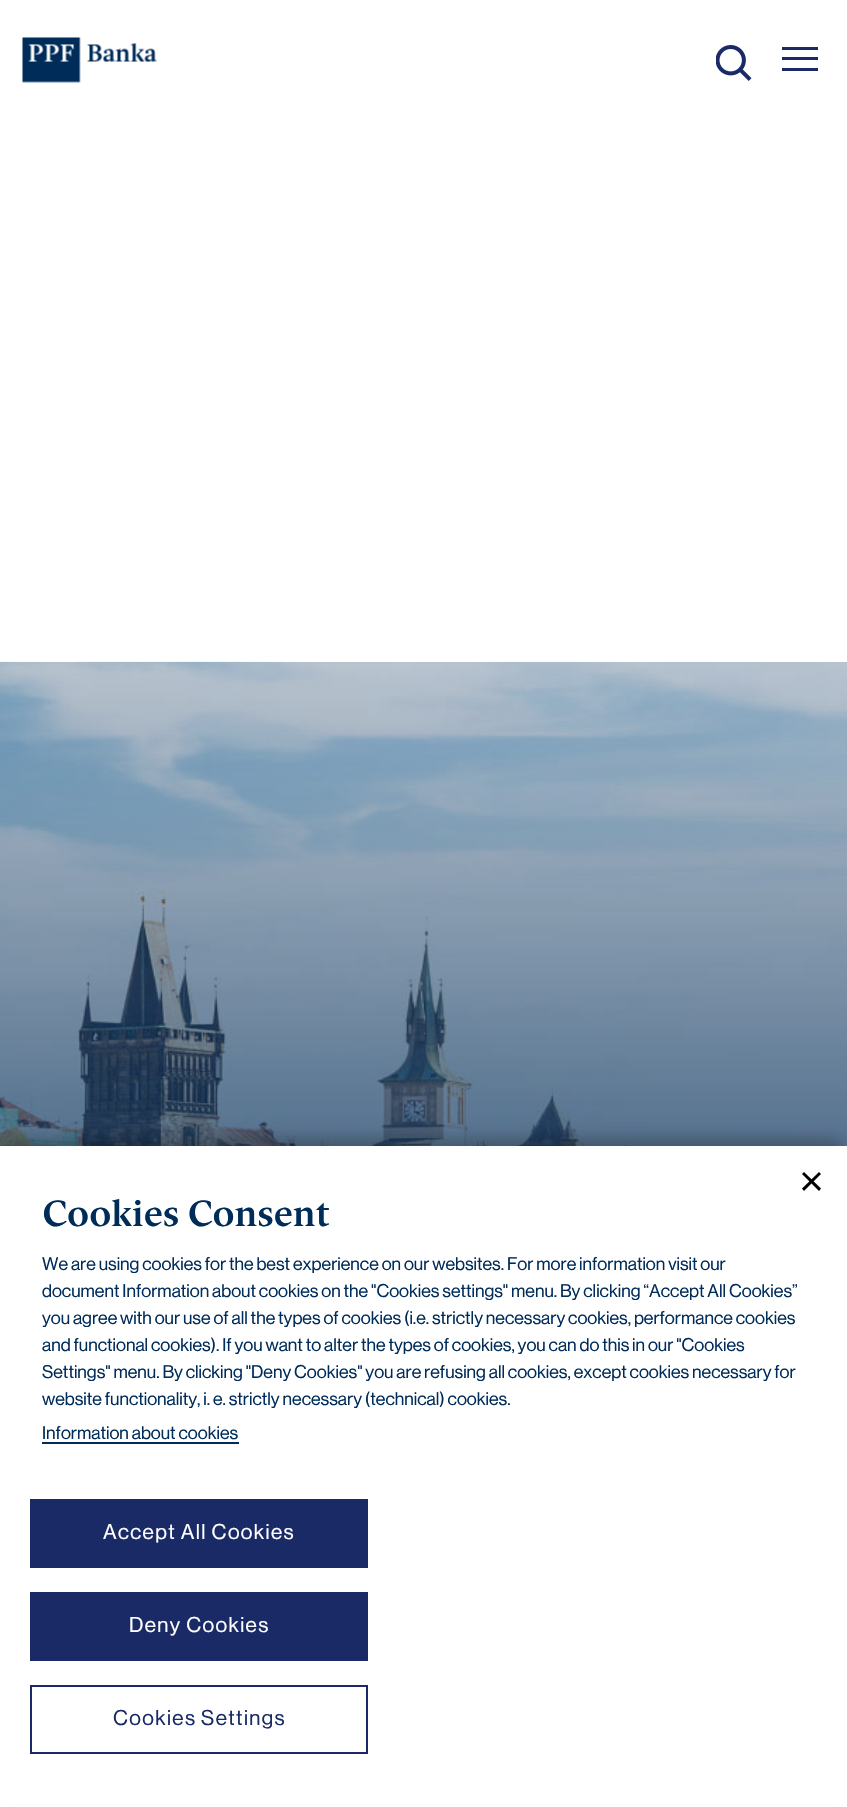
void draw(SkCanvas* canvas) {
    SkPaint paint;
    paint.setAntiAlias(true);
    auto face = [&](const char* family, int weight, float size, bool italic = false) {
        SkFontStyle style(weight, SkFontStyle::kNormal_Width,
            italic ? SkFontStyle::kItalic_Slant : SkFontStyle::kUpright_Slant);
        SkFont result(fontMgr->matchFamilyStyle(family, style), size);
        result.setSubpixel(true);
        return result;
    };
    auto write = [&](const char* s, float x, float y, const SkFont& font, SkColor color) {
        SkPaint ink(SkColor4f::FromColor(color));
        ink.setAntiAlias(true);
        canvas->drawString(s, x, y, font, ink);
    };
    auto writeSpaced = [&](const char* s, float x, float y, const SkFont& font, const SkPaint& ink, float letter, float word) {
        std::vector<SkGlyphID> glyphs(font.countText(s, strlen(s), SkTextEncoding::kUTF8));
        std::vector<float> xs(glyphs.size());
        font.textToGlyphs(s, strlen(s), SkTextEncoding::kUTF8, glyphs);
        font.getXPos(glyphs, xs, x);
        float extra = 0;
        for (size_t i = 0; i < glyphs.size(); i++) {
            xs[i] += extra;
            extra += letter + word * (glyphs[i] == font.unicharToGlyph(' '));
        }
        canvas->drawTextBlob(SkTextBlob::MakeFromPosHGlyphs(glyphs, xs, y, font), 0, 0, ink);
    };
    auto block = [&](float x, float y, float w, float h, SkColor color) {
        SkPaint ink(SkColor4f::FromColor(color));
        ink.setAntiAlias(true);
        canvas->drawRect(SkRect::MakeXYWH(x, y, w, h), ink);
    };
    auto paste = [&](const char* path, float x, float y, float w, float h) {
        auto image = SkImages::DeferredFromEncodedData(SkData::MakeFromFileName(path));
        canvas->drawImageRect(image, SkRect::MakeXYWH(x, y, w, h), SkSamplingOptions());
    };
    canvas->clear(SK_ColorWHITE);
    paste("pic1.png", 22, 37, 135, 46);
    paste("pic2.png", 716, 45, 36, 36);
    block(782, 57, 36, 3, SkColorSetRGB(26, 42, 102));
    block(782, 47, 36, 3, SkColorSetRGB(26, 42, 102));
    block(782, 68, 36, 3, SkColorSetRGB(26, 42, 102));
    paste("pic3.png", 0, 661, 847, 485);
    {
        const SkColor colors[] = {SkColorSetARGB(66, 0, 44, 90), SkColorSetRGB(0, 44, 90)};
        const float stops[] = {0, 1};
        const SkPoint ends[] = {{424, 661}, {424, 1562}};
        paint.setShader(SkGradientShader::MakeLinear(ends, colors, stops, 2, SkTileMode::kClamp));
        paint.setAlpha(255);
    }
    canvas->drawRect(SkRect::MakeXYWH(0, 662, 847, 484), paint);
    paint.setShader(nullptr);
    paint.setColor(SkColorSetARGB(64, 0, 0, 0));
    paint.setMaskFilter(SkMaskFilter::MakeBlur(kNormal_SkBlurStyle, 7.5f));
    canvas->drawRect(SkRect::MakeXYWH(5, 1139, 838, 652), paint);
    paint.setMaskFilter(nullptr);
    block(0, 1146, 847, 658, SK_ColorWHITE);
    paint.setColor(SK_ColorBLACK);
    canvas->drawPath(SkPathBuilder().moveTo(819, 1172).lineTo(821, 1174).lineTo(804, 1191).lineTo(802, 1188.5f).close().detach(), paint);
    canvas->drawPath(SkPathBuilder().moveTo(802, 1174).lineTo(804, 1172).lineTo(821, 1188.5f).lineTo(819, 1191).close().detach(), paint);
    auto kFont1 = face("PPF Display", 400, 36);
    write("Cookies Consent", 42, 1226, kFont1, SkColorSetRGB(0, 44, 90));
    auto kFont2 = face("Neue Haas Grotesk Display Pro", 400, 18);
    write("We are using cookies for the best experience on our websites. For more information visit our", 42, 1270, kFont2, SkColorSetRGB(0, 44, 90));
    write("document Information about cookies on the \"Cookies settings\" menu. By clicking “Accept All Cookies”", 42, 1297, kFont2, SkColorSetRGB(0, 44, 90));
    write("you agree with our use of all the types of cookies (i.e. strictly necessary cookies, performance cookies", 42, 1324, kFont2, SkColorSetRGB(0, 44, 90));
    write("and functional cookies). If you want to alter the types of cookies, you can do this in our \"Cookies", 42, 1351, kFont2, SkColorSetRGB(0, 44, 90));
    write("Settings\" menu. By clicking \"Deny Cookies\" you are refusing all cookies, except cookies necessary for", 42, 1378, kFont2, SkColorSetRGB(0, 44, 90));
    write("website functionality, i. e. strictly necessary (technical) cookies.", 42, 1405, kFont2, SkColorSetRGB(0, 44, 90));
    write("Information about cookies", 42, 1439, kFont2, SkColorSetRGB(0, 44, 90));
    block(42, 1442, 197, 2, SkColorSetRGB(0, 44, 90));
    block(30, 1499, 338, 69, SkColorSetRGB(26, 42, 102));
    auto kFont3 = face("Neue Haas Grotesk Display Pro", 400, 21);
    paint.setColor(SK_ColorWHITE);
    writeSpaced("Accept All Cookies", 103, 1539, kFont3, paint, 1.4f, 0);
    block(30, 1592, 338, 69, SkColorSetRGB(26, 42, 102));
    writeSpaced("Deny Cookies", 129, 1632, kFont3, paint, 1.4f, 0);
    paint.setStyle(SkPaint::kStroke_Style);
    paint.setStrokeWidth(2);
    paint.setColor(SkColorSetRGB(26, 42, 102));
    canvas->drawRect(SkRect::MakeXYWH(31, 1686, 336, 67), paint);
    paint.setStyle(SkPaint::kFill_Style);
    writeSpaced("Cookies Settings", 113, 1725, kFont3, paint, 1.4f, 0);
}
